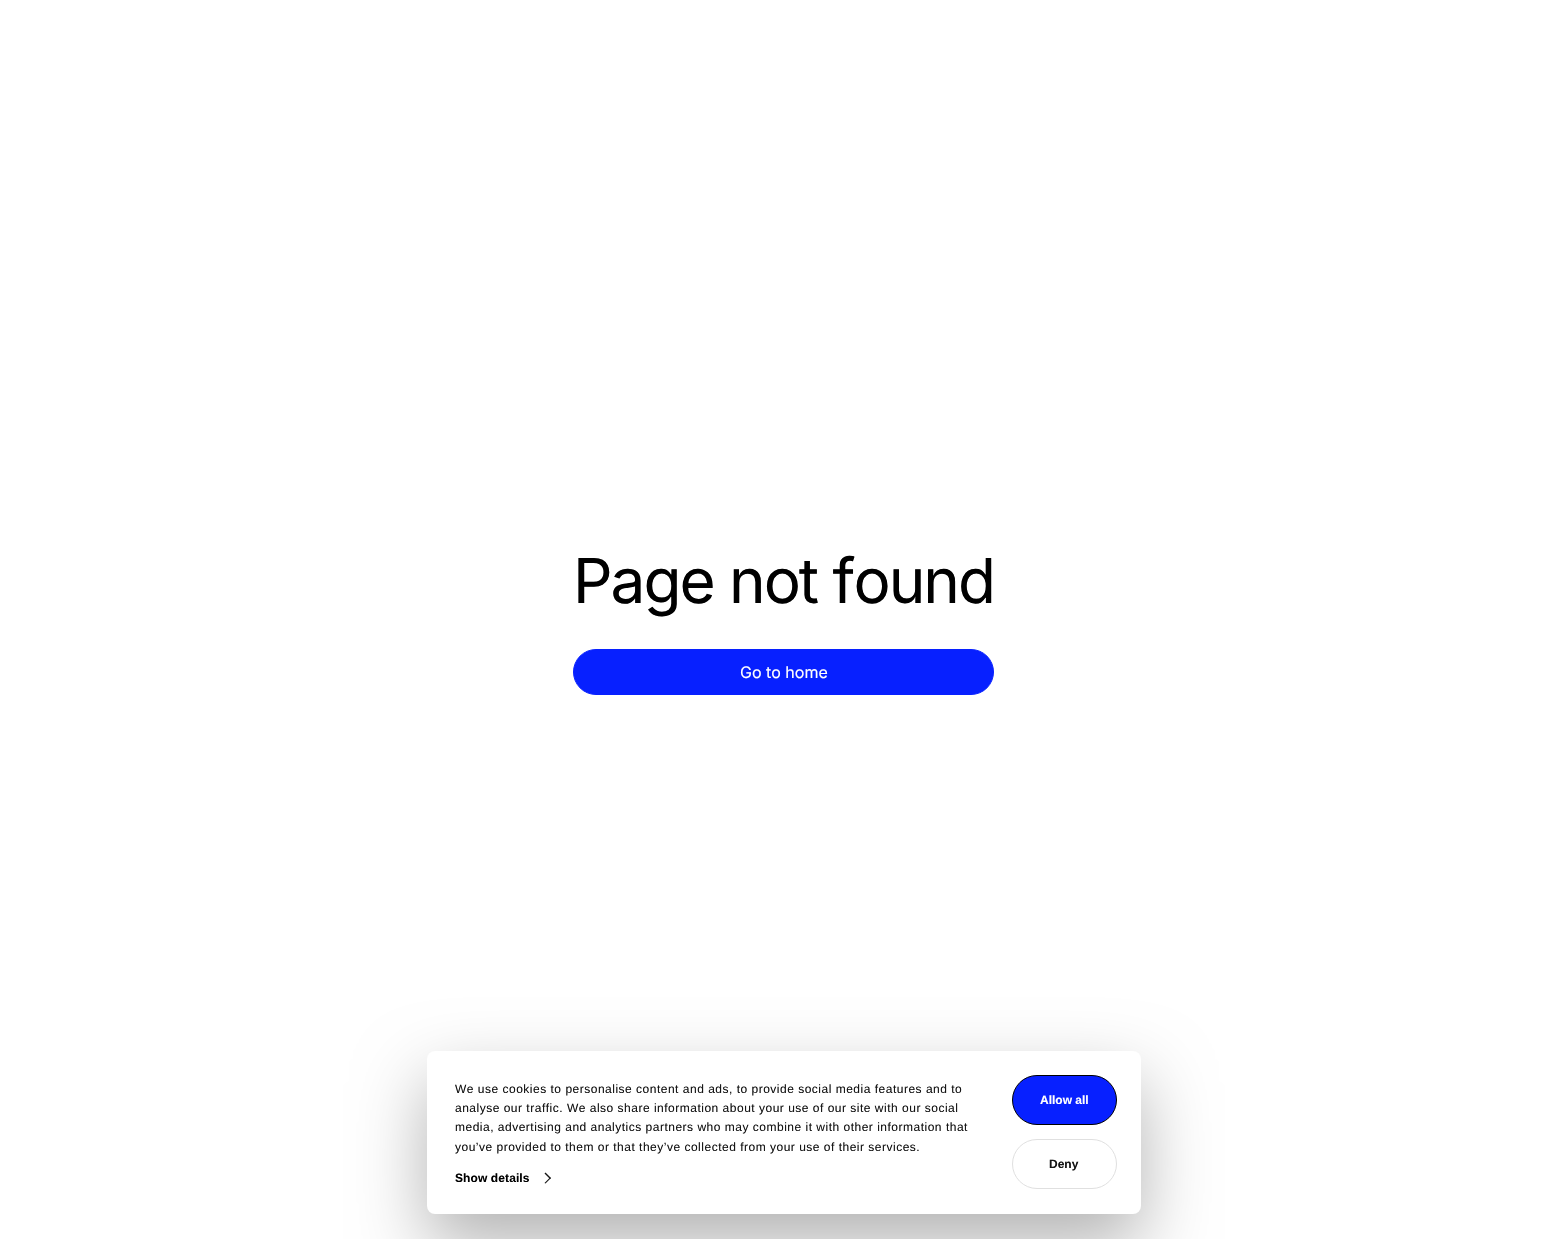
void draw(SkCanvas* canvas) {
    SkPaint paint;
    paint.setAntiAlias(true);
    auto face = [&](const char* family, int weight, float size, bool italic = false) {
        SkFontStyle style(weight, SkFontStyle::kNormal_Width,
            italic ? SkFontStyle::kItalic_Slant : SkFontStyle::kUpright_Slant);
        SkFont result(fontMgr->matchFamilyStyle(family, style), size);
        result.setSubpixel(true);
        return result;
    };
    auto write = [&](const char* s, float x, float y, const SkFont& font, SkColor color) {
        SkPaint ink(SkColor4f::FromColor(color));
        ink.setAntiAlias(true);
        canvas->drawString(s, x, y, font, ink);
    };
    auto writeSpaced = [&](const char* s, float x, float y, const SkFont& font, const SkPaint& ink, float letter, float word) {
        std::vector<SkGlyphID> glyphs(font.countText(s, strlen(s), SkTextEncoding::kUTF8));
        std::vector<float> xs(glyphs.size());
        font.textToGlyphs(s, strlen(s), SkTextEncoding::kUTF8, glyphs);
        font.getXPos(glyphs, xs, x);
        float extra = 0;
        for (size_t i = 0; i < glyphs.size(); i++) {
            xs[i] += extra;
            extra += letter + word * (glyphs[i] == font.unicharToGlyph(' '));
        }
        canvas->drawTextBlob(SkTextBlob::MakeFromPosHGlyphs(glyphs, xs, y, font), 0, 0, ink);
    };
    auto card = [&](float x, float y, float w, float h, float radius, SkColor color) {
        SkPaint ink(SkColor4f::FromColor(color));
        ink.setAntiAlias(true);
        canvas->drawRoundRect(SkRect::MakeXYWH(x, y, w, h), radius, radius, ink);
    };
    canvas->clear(SK_ColorWHITE);
    auto kFont1 = face("Inter", 400, 62);
    paint.setColor(SK_ColorBLACK);
    writeSpaced("Page not found", 573, 603, kFont1, paint, -2, 0);
    paint.setColor(SkColorSetRGB(7, 32, 255));
    canvas->drawRoundRect(SkRect::MakeXYWH(573.5f, 649.5f, 420, 45), 22.5f, 22.5f, paint);
    paint.setStyle(SkPaint::kStroke_Style);
    paint.setStrokeWidth(1);
    canvas->drawRoundRect(SkRect::MakeXYWH(573.5f, 649.5f, 420, 45), 22.5f, 22.5f, paint);
    auto kFont2 = face("Inter", 400, 16);
    write("Go to home", 740, 678, kFont2, SK_ColorWHITE);
    paint.setStyle(SkPaint::kFill_Style);
    paint.setColor(SkColorSetARGB(77, 0, 0, 0));
    paint.setMaskFilter(SkMaskFilter::MakeBlur(kNormal_SkBlurStyle, 35));
    canvas->drawRoundRect(SkRect::MakeXYWH(427, 1081, 714, 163), 8, 8, paint);
    paint.setMaskFilter(nullptr);
    card(427, 1051, 714, 163, 8, SK_ColorWHITE);
    auto kFont3 = face("Liberation Sans", 400, 12);
    paint.setColor(SkColorSetRGB(20, 20, 20));
    writeSpaced("We use cookies to personalise content and ads, to provide social media features and to", 455, 1093, kFont3, paint, 0.5f, 0);
    writeSpaced("analyse our traffic. We also share information about your use of our site with our social", 455, 1112, kFont3, paint, 0.5f, 0);
    writeSpaced("media, advertising and analytics partners who may combine it with other information that", 455, 1131, kFont3, paint, 0.5f, 0);
    writeSpaced("you’ve provided to them or that they’ve collected from your use of their services.", 455, 1151, kFont3, paint, 0.5f, 0);
    auto kFont4 = face("Liberation Sans", 700, 12);
    paint.setColor(SK_ColorBLACK);
    writeSpaced("Show details", 455, 1182, kFont4, paint, 0.1f, 0);
    paint.setColor(SkColorSetRGB(20, 20, 20));
    canvas->drawPath(SkPathBuilder().moveTo(545.5f, 1172.5f).lineTo(551, 1178).lineTo(550, 1179).lineTo(544.5f, 1173.5f).close().detach(), paint);
    canvas->drawPath(SkPathBuilder().moveTo(550, 1177.5f).lineTo(551, 1178).lineTo(545.5f, 1183.5f).lineTo(544.5f, 1183).close().detach(), paint);
    paint.setColor(SkColorSetRGB(7, 32, 255));
    canvas->drawRoundRect(SkRect::MakeXYWH(1012.5f, 1075.5f, 104, 49), 24.5f, 24.5f, paint);
    paint.setStyle(SkPaint::kStroke_Style);
    paint.setColor(SK_ColorBLACK);
    canvas->drawRoundRect(SkRect::MakeXYWH(1012.5f, 1075.5f, 104, 49), 24.5f, 24.5f, paint);
    write("Allow all", 1040, 1104, kFont4, SK_ColorWHITE);
    paint.setColor(SkColorSetRGB(224, 224, 224));
    canvas->drawRoundRect(SkRect::MakeXYWH(1012.5f, 1139.5f, 104, 49), 24.5f, 24.5f, paint);
    write("Deny", 1049, 1168, kFont4, SkColorSetRGB(20, 20, 20));
}
